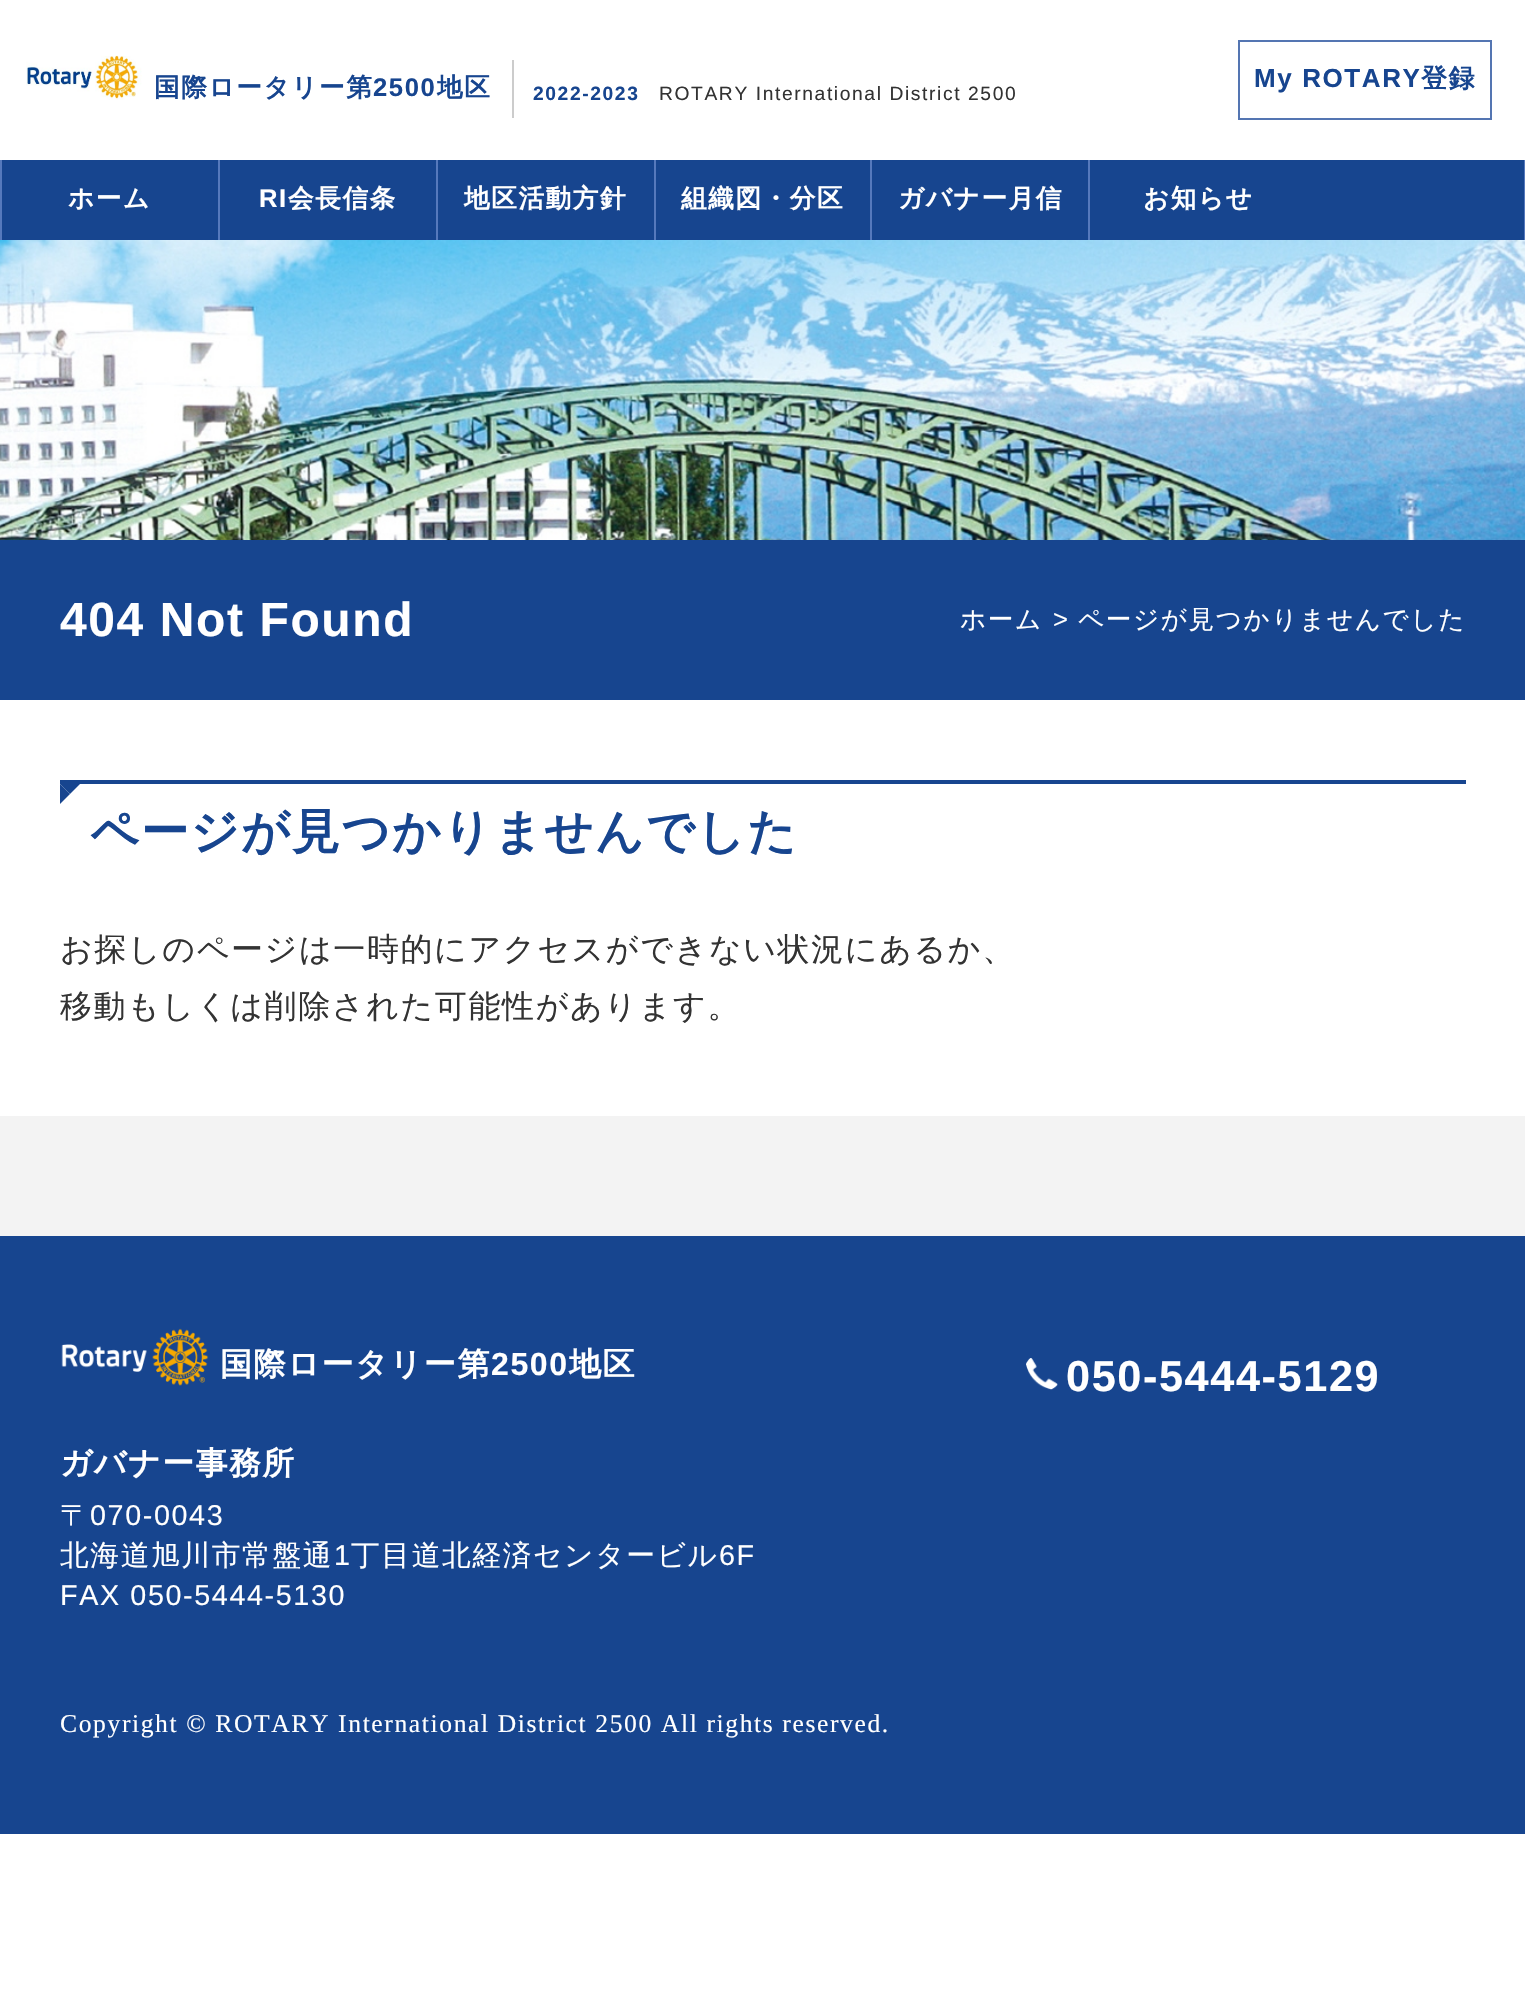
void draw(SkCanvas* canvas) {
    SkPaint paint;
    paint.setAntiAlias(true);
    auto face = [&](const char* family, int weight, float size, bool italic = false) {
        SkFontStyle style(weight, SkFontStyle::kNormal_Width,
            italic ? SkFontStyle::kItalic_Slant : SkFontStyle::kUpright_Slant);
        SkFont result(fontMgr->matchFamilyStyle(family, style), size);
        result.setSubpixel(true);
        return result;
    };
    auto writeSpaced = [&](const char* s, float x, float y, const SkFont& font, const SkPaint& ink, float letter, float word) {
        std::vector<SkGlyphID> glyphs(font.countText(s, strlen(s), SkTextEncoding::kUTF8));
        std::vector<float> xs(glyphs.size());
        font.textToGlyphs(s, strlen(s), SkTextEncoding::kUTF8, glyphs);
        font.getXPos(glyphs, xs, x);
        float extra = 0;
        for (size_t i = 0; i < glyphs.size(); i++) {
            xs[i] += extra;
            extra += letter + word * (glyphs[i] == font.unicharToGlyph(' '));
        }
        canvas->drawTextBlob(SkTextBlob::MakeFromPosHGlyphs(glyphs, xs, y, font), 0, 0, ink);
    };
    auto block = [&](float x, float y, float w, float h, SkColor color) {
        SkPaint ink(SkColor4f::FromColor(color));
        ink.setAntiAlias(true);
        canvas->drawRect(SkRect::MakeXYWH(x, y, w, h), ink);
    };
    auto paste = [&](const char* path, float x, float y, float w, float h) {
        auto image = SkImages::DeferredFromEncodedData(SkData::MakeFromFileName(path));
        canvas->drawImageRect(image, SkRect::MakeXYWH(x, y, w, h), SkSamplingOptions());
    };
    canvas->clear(SK_ColorWHITE);
    paste("pic1.png", 26, 55, 116, 45);
    block(512, 60, 2, 58, SkColorSetRGB(204, 204, 204));
    auto kFont1 = face("WenQuanYi Zen Hei", 700, 25.6f);
    paint.setColor(SkColorSetRGB(23, 69, 143));
    writeSpaced("国際ロータリー第", 154, 96, kFont1, paint, 1.6f, 0);
    auto kFont2 = face("Liberation Sans", 700, 25.6f);
    writeSpaced("2500", 373, 96, kFont2, paint, 1.6f, 0);
    writeSpaced("地区", 437, 96, kFont1, paint, 1.6f, 0);
    auto kFont3 = face("Liberation Sans", 700, 19.25f);
    writeSpaced("2022-2023", 533, 100, kFont3, paint, 1.6f, 0);
    auto kFont4 = face("Liberation Sans", 400, 19.25f);
    paint.setColor(SkColorSetRGB(51, 51, 51));
    writeSpaced("ROTARY International District 2500", 659, 100, kFont4, paint, 1.6f, 0);
    paint.setStyle(SkPaint::kStroke_Style);
    paint.setStrokeWidth(2);
    paint.setColor(SkColorSetRGB(84, 117, 178));
    canvas->drawRect(SkRect::MakeXYWH(1239, 41, 252, 78), paint);
    auto kFont5 = face("Liberation Sans", 700, 26);
    paint.setStyle(SkPaint::kFill_Style);
    paint.setColor(SkColorSetRGB(23, 69, 143));
    writeSpaced("My ROTARY", 1254, 87, kFont5, paint, 1.6f, 0);
    auto kFont6 = face("WenQuanYi Zen Hei", 700, 26);
    writeSpaced("登録", 1421, 87, kFont6, paint, 1.6f, 0);
    block(2, 160, 1522, 80, SkColorSetRGB(23, 69, 143));
    block(1524, 160, 1, 80, SkColorSetRGB(86, 121, 188));
    block(0, 160, 2, 80, SkColorSetRGB(86, 121, 188));
    paint.setColor(SK_ColorWHITE);
    writeSpaced("ホーム", 68, 207, kFont1, paint, 1.6f, 0);
    block(218, 160, 2, 80, SkColorSetRGB(86, 121, 188));
    writeSpaced("RI", 259, 207, kFont2, paint, 1.6f, 0);
    writeSpaced("会長信条", 288, 207, kFont1, paint, 1.6f, 0);
    block(436, 160, 2, 80, SkColorSetRGB(86, 121, 188));
    writeSpaced("地区活動方針", 464, 207, kFont1, paint, 1.6f, 0);
    block(654, 160, 2, 80, SkColorSetRGB(86, 121, 188));
    writeSpaced("組織図・分区", 681, 207, kFont1, paint, 1.6f, 0);
    block(870, 160, 2, 80, SkColorSetRGB(86, 121, 188));
    writeSpaced("ガバナー月信", 898, 207, kFont1, paint, 1.6f, 0);
    block(1088, 160, 2, 80, SkColorSetRGB(86, 121, 188));
    writeSpaced("お知らせ", 1143, 207, kFont1, paint, 1.6f, 0);
    paste("pic2.png", 0, 240, 1525, 300);
    block(0, 540, 1525, 160, SkColorSetRGB(23, 69, 143));
    auto kFont7 = face("Liberation Sans", 700, 48);
    writeSpaced("404 Not Found", 60, 636, kFont7, paint, 1.6f, 0);
    auto kFont8 = face("WenQuanYi Zen Hei", 500, 25.6f);
    writeSpaced("ホーム", 960, 628, kFont8, paint, 1.6f, 0);
    auto kFont9 = face("Liberation Sans", 400, 25.6f);
    writeSpaced(">", 1053, 628, kFont9, paint, 1.6f, 0);
    writeSpaced("ページが見つかりませんでした", 1078, 628, kFont8, paint, 1.6f, 0);
    block(60, 780, 1406, 4, SkColorSetRGB(23, 69, 143));
    paint.setColor(SkColorSetRGB(23, 69, 143));
    canvas->drawPath(SkPathBuilder().moveTo(60, 784).lineTo(80, 784).lineTo(70, 794).close().detach(), paint);
    canvas->drawPath(SkPathBuilder().moveTo(60, 804).lineTo(60, 784).lineTo(70, 794).close().detach(), paint);
    auto kFont10 = face("WenQuanYi Zen Hei", 700, 48);
    writeSpaced("ページが見つかりませんでした", 90, 848, kFont10, paint, 1.6f, 0);
    auto kFont11 = face("WenQuanYi Zen Hei", 500, 32);
    paint.setColor(SkColorSetRGB(51, 51, 51));
    writeSpaced("お探しのページは一時的にアクセスができない状況にあるか、", 60, 960, kFont11, paint, 1.6f, 0);
    writeSpaced("移動もしくは削除された可能性があります。", 60, 1017, kFont11, paint, 1.6f, 0);
    block(0, 1116, 1525, 120, SkColorSetRGB(243, 243, 243));
    block(0, 1236, 1525, 598, SkColorSetRGB(23, 69, 143));
    paste("pic3.png", 61, 1328, 148, 58);
    auto kFont12 = face("WenQuanYi Zen Hei", 700, 32);
    paint.setColor(SK_ColorWHITE);
    writeSpaced("国際ロータリー第", 220, 1375, kFont12, paint, 1.6f, 0);
    auto kFont13 = face("Liberation Sans", 700, 32);
    writeSpaced("2500", 491, 1375, kFont13, paint, 1.6f, 0);
    writeSpaced("地区", 569, 1375, kFont12, paint, 1.6f, 0);
    auto kFont14 = face("WenQuanYi Zen Hei", 700, 31.75f);
    writeSpaced("ガバナー事務所", 60, 1474, kFont14, paint, 1.6f, 0);
    auto kFont15 = face("WenQuanYi Zen Hei", 500, 28.75f);
    writeSpaced("〒", 60, 1525, kFont15, paint, 1.6f, 0);
    auto kFont16 = face("Liberation Sans", 400, 28.75f);
    writeSpaced("070-0043", 90, 1525, kFont16, paint, 1.6f, 0);
    writeSpaced("北海道旭川市常盤通", 60, 1565, kFont15, paint, 1.6f, 0);
    writeSpaced("1", 334, 1565, kFont16, paint, 1.6f, 0);
    writeSpaced("丁目道北経済センタービル", 351, 1565, kFont15, paint, 1.6f, 0);
    writeSpaced("6F", 719, 1565, kFont16, paint, 1.6f, 0);
    writeSpaced("FAX 050-5444-5130", 60, 1605, kFont16, paint, 1.6f, 0);
    paste("pic4.png", 1026, 1358, 32, 32);
    auto kFont17 = face("Liberation Sans", 700, 43.25f);
    writeSpaced("050-5444-5129", 1066, 1391, kFont17, paint, 1.6f, 0);
    auto kFont18 = face("Liberation Serif", 400, 25.6f);
    writeSpaced("Copyright © ROTARY International District 2500 All rights reserved.", 60, 1732, kFont18, paint, 1.6f, 0);
}
